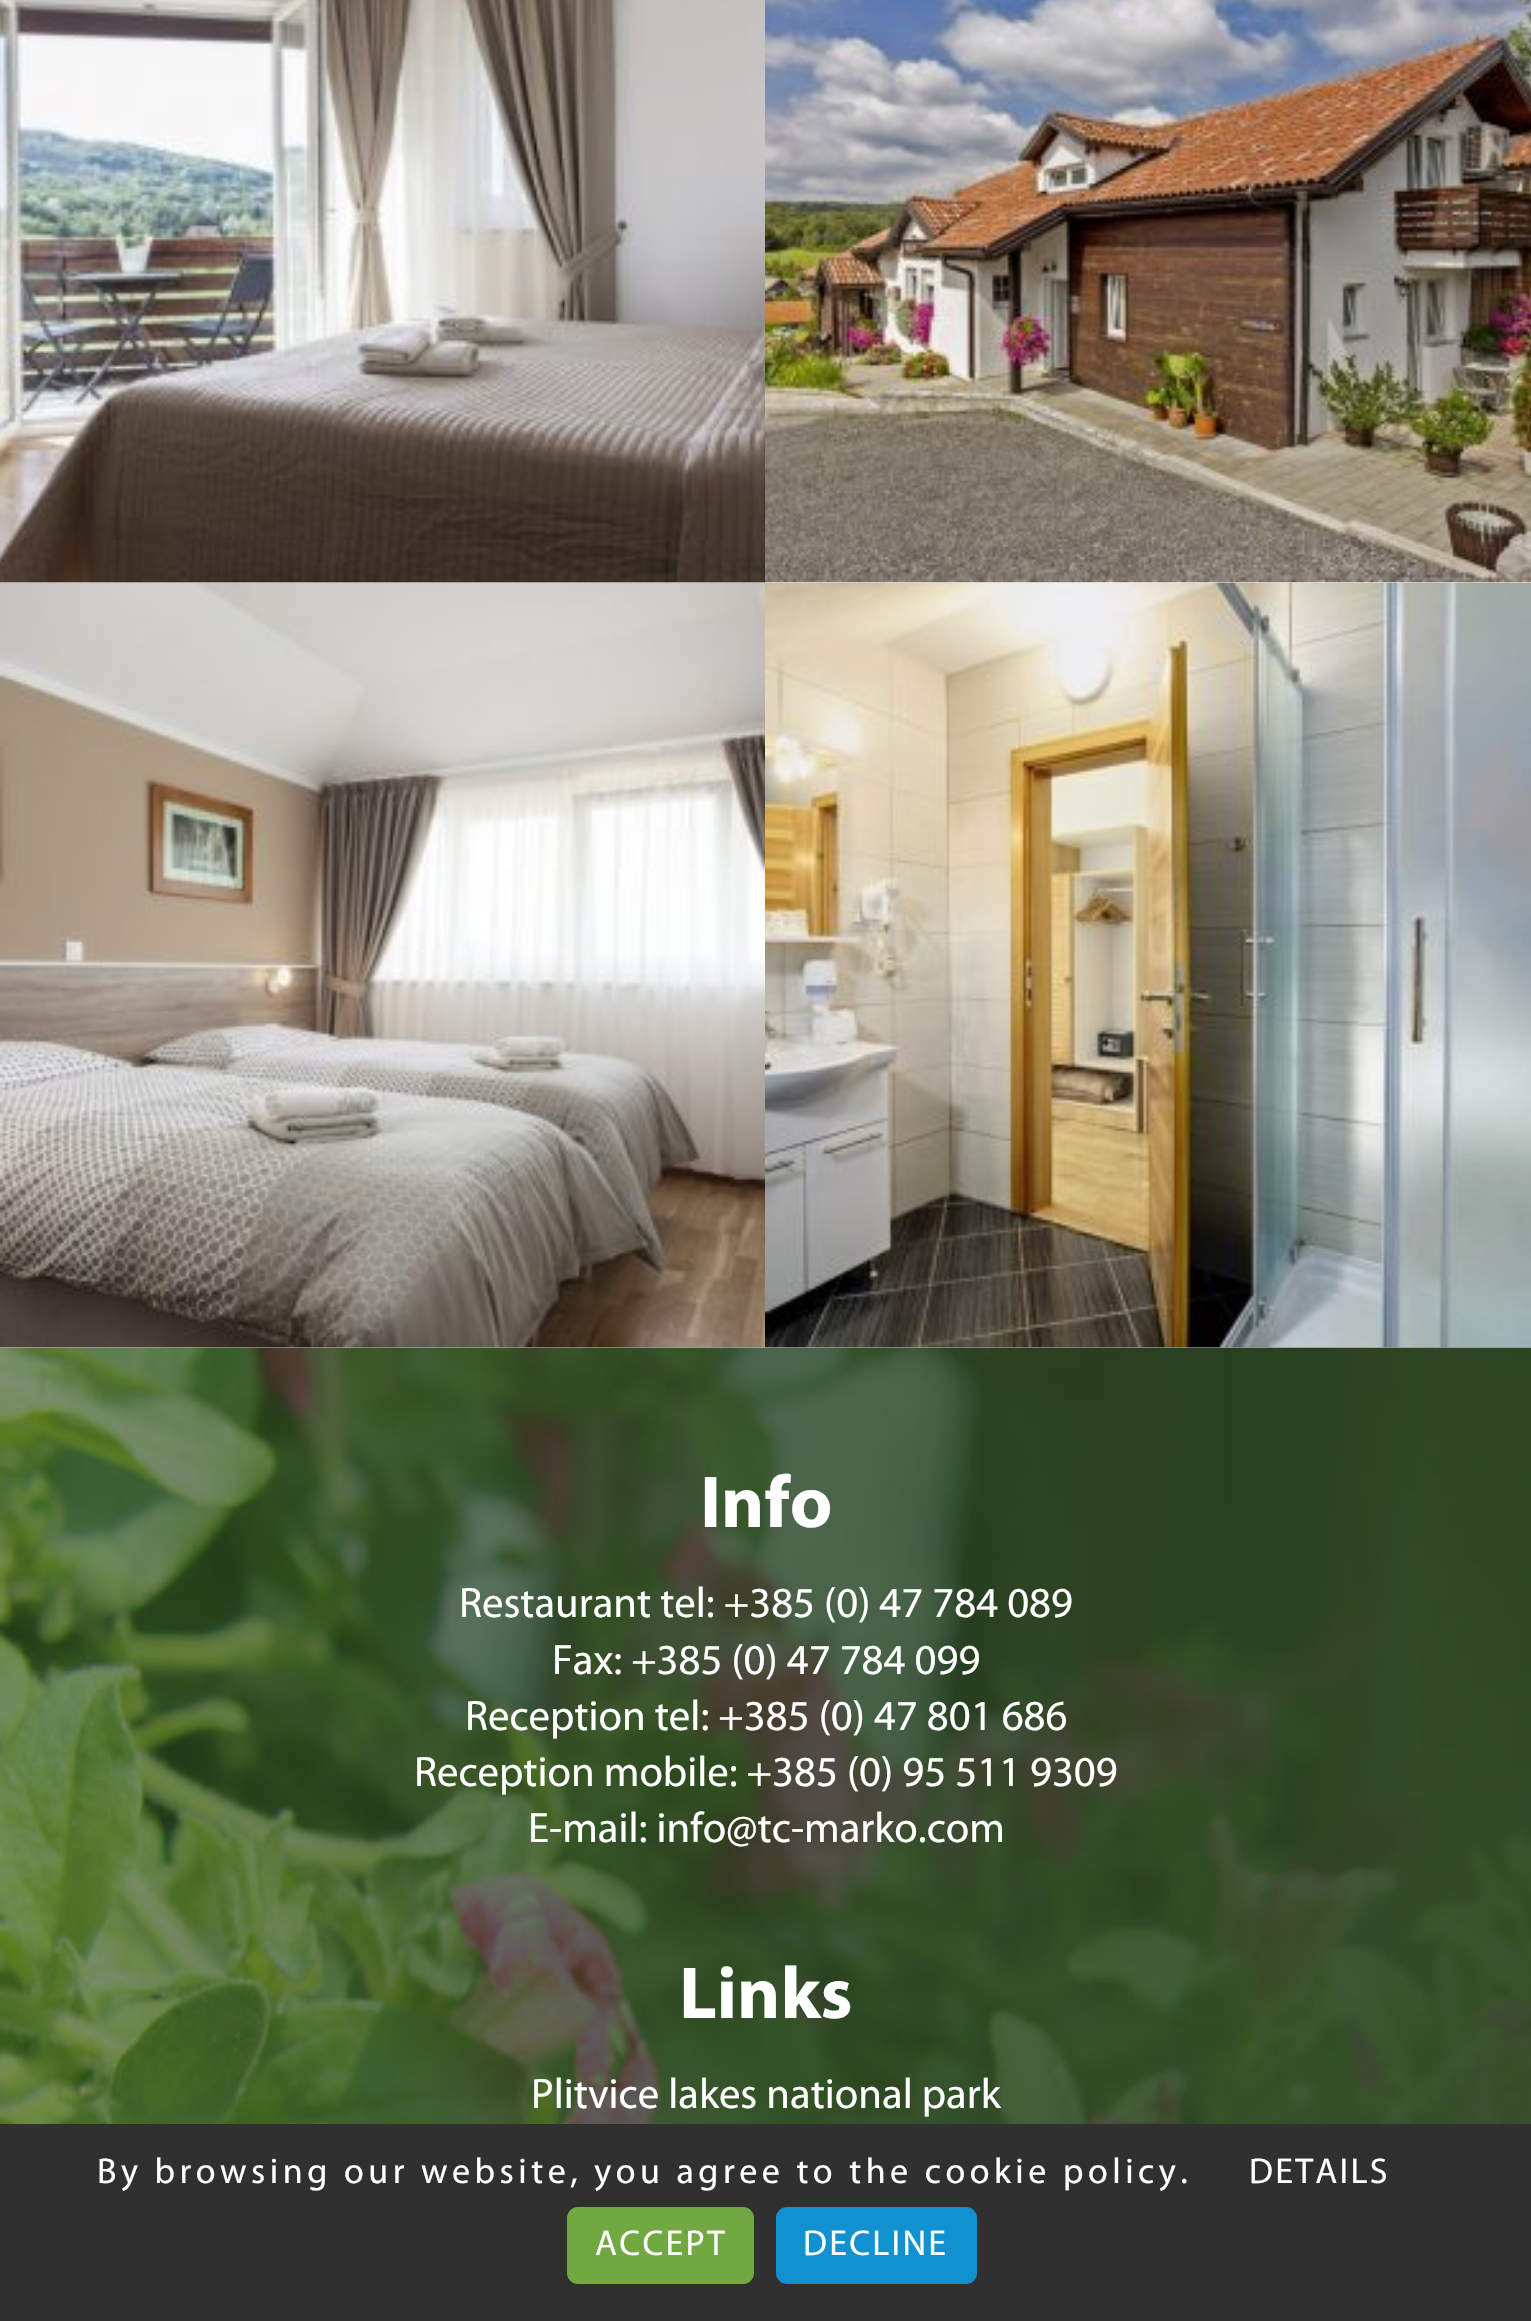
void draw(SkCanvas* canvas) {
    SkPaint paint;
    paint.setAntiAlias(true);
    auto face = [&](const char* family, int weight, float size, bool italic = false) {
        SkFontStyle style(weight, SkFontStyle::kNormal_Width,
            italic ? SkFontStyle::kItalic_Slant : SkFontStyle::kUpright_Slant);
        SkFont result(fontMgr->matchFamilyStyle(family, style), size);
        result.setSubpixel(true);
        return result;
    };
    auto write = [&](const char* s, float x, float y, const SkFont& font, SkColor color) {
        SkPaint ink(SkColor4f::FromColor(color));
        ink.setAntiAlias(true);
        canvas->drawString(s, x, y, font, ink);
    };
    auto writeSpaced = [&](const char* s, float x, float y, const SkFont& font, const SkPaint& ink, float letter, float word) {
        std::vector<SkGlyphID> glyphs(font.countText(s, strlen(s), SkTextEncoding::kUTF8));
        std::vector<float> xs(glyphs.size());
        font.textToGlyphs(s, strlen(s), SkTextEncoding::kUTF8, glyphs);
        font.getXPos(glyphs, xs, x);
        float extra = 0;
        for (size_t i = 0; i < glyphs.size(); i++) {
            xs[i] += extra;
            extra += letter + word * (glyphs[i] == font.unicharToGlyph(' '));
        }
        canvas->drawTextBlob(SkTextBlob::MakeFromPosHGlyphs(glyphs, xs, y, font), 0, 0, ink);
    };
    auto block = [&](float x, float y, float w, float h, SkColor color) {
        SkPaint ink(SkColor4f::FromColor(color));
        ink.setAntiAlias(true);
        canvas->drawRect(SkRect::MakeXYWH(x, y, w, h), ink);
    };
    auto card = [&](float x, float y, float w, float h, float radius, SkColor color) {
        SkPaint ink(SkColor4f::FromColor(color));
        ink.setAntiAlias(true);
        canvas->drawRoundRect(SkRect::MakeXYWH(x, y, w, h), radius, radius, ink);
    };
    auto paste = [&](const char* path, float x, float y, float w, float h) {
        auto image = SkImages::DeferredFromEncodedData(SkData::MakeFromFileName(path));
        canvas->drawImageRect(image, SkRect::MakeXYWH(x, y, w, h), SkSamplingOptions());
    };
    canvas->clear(SkColorSetRGB(240, 241, 242));
    paste("pic1.png", 0, 0, 765, 583);
    paste("pic2.png", 765, 0, 766, 583);
    paste("pic5.png", 0, 1347, 1531, 777);
    paste("pic3.png", 0, 582, 765, 766);
    paste("pic4.png", 765, 582, 766, 766);
    auto kFont1 = face("Myriad", 700, 74);
    write("Info", 700, 1527, kFont1, SK_ColorWHITE);
    auto kFont2 = face("Myriad", 400, 42.75f);
    write("Restaurant tel: +385 (0) 47 784 089", 459, 1617, kFont2, SK_ColorWHITE);
    write("Fax: +385 (0) 47 784 099", 552, 1674, kFont2, SK_ColorWHITE);
    write("Reception tel: +385 (0) 47 801 686", 465, 1730, kFont2, SK_ColorWHITE);
    write("Reception mobile: +385 (0) 95 511 9309", 414, 1786, kFont2, SK_ColorWHITE);
    write("E-mail: info@tc-marko.com", 528, 1842, kFont2, SK_ColorWHITE);
    write("Links", 679, 2018, kFont1, SK_ColorWHITE);
    write("Plitvice lakes national park", 531, 2108, kFont2, SK_ColorWHITE);
    block(0, 2124, 1531, 197, SkColorSetRGB(48, 48, 48));
    auto kFont3 = face("Myriad", 400, 36);
    paint.setColor(SK_ColorWHITE);
    writeSpaced("By browsing our website, you agree to the cookie policy.", 97, 2183, kFont3, paint, 4.5f, 0);
    writeSpaced("DETAILS", 1249, 2183, kFont3, paint, 2.25f, 0);
    card(567, 2207, 187, 77, 11, SkColorSetRGB(113, 168, 65));
    writeSpaced("ACCEPT", 595, 2255, kFont3, paint, 2.25f, 0);
    card(776, 2207, 201, 77, 11, SkColorSetRGB(17, 145, 208));
    writeSpaced("DECLINE", 803, 2255, kFont3, paint, 2.25f, 0);
}
